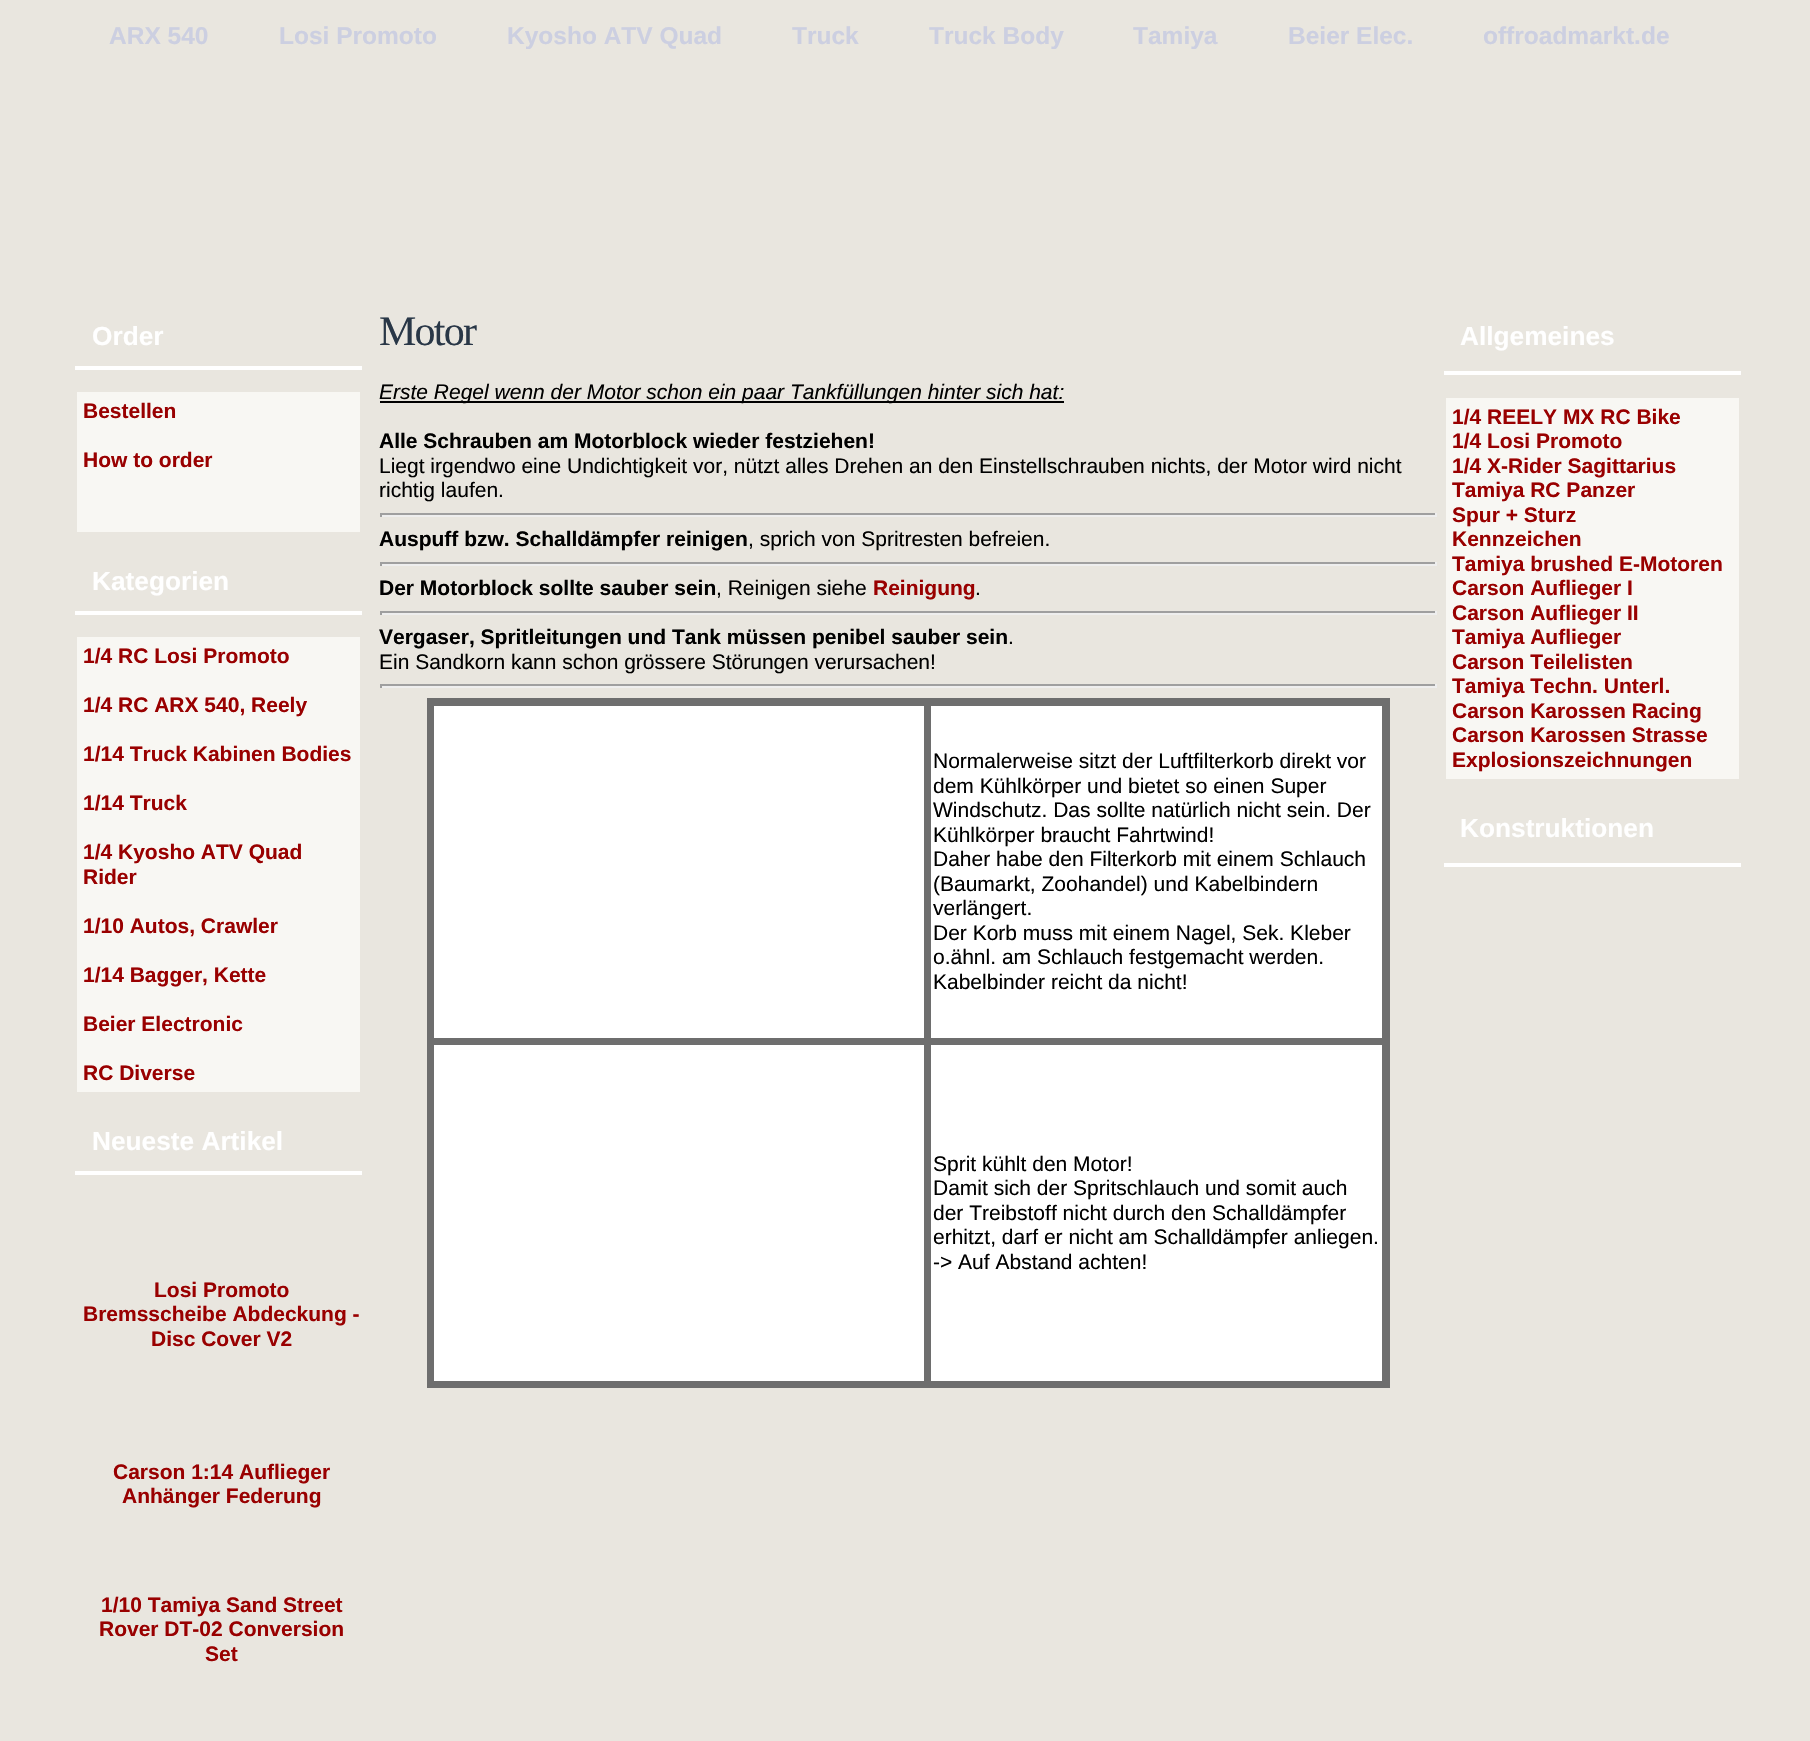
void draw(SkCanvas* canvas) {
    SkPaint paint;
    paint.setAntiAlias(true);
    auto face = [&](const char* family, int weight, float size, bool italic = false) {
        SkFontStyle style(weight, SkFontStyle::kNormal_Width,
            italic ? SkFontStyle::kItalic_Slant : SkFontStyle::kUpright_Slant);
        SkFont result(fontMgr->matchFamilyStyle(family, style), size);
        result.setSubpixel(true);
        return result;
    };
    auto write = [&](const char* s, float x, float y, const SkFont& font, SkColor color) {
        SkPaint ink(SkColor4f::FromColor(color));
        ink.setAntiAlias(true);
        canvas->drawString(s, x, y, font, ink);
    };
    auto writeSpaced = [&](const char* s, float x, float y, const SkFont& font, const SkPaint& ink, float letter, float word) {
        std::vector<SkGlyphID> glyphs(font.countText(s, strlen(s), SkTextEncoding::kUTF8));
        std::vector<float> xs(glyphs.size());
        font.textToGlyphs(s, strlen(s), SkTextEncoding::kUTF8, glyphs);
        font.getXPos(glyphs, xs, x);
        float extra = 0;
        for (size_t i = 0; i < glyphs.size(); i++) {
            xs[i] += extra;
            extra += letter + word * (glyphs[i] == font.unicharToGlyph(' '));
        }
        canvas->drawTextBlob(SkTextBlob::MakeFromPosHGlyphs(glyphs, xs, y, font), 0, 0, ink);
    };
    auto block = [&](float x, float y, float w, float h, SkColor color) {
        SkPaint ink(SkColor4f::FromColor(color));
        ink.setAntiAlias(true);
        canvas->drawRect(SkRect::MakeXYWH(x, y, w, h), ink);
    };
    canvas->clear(SkColorSetRGB(233, 230, 223));
    auto kFont1 = face("Liberation Sans", 700, 24.5f);
    write("ARX 540", 109, 44, kFont1, SkColorSetRGB(204, 207, 225));
    write("Losi Promoto", 279, 44, kFont1, SkColorSetRGB(204, 207, 225));
    write("Kyosho ATV Quad", 507, 44, kFont1, SkColorSetRGB(204, 207, 225));
    write("Truck", 792, 44, kFont1, SkColorSetRGB(204, 207, 225));
    write("Truck Body", 929, 44, kFont1, SkColorSetRGB(204, 207, 225));
    write("Tamiya", 1133, 44, kFont1, SkColorSetRGB(204, 207, 225));
    write("Beier Elec.", 1288, 44, kFont1, SkColorSetRGB(204, 207, 225));
    write("offroadmarkt.de", 1483, 44, kFont1, SkColorSetRGB(204, 207, 225));
    block(75, 366, 287, 4, SK_ColorWHITE);
    auto kFont2 = face("Liberation Sans", 700, 26.25f);
    write("Order", 92, 345, kFont2, SK_ColorWHITE);
    block(77, 392, 283, 140, SkColorSetRGB(248, 247, 243));
    auto kFont3 = face("Liberation Sans", 700, 21);
    write("Bestellen", 83, 418, kFont3, SkColorSetRGB(153, 0, 0));
    write("How to order", 83, 467, kFont3, SkColorSetRGB(153, 0, 0));
    block(75, 611, 287, 4, SK_ColorWHITE);
    write("Kategorien", 92, 590, kFont2, SK_ColorWHITE);
    block(77, 637, 283, 455, SkColorSetRGB(248, 247, 243));
    write("1/4 RC Losi Promoto", 83, 663, kFont3, SkColorSetRGB(153, 0, 0));
    write("1/4 RC ARX 540, Reely", 83, 712, kFont3, SkColorSetRGB(153, 0, 0));
    write("1/14 Truck Kabinen Bodies", 83, 761, kFont3, SkColorSetRGB(153, 0, 0));
    write("1/14 Truck", 83, 810, kFont3, SkColorSetRGB(153, 0, 0));
    write("1/4 Kyosho ATV Quad", 83, 859, kFont3, SkColorSetRGB(153, 0, 0));
    write("Rider", 83, 884, kFont3, SkColorSetRGB(153, 0, 0));
    write("1/10 Autos, Crawler", 83, 933, kFont3, SkColorSetRGB(153, 0, 0));
    write("1/14 Bagger, Kette", 83, 982, kFont3, SkColorSetRGB(153, 0, 0));
    write("Beier Electronic", 83, 1031, kFont3, SkColorSetRGB(153, 0, 0));
    write("RC Diverse", 83, 1080, kFont3, SkColorSetRGB(153, 0, 0));
    block(75, 1171, 287, 4, SK_ColorWHITE);
    write("Neueste Artikel", 92, 1150, kFont2, SK_ColorWHITE);
    write("Losi Promoto", 154, 1297, kFont3, SkColorSetRGB(153, 0, 0));
    write("Bremsscheibe Abdeckung -", 83, 1321, kFont3, SkColorSetRGB(153, 0, 0));
    write("Disc Cover V2", 151, 1346, kFont3, SkColorSetRGB(153, 0, 0));
    write("Carson 1:14 Auflieger", 113, 1479, kFont3, SkColorSetRGB(153, 0, 0));
    write("Anhänger Federung", 122, 1503, kFont3, SkColorSetRGB(153, 0, 0));
    write("1/10 Tamiya Sand Street", 101, 1612, kFont3, SkColorSetRGB(153, 0, 0));
    write("Rover DT-02 Conversion", 99, 1636, kFont3, SkColorSetRGB(153, 0, 0));
    write("Set", 205, 1661, kFont3, SkColorSetRGB(153, 0, 0));
    auto kFont4 = face("Liberation Serif", 400, 42);
    paint.setColor(SkColorSetRGB(41, 55, 71));
    writeSpaced("Motor", 379, 345, kFont4, paint, -1.75f, 0);
    block(380, 401, 684, 2, SK_ColorBLACK);
    auto kFont5 = face("Liberation Sans", 400, 21, true);
    write("Erste Regel wenn der Motor schon ein paar Tankfüllungen hinter sich hat:", 379, 399, kFont5, SK_ColorBLACK);
    write("Alle Schrauben am Motorblock wieder festziehen!", 379, 448, kFont3, SK_ColorBLACK);
    auto kFont6 = face("Liberation Sans", 400, 21);
    write("Liegt irgendwo eine Undichtigkeit vor, nützt alles Drehen an den Einstellschrauben nichts, der Motor wird nicht", 379, 473, kFont6, SK_ColorBLACK);
    write("richtig laufen.", 379, 497, kFont6, SK_ColorBLACK);
    block(380, 513, 1057, 2, SkColorSetRGB(159, 159, 159));
    block(1435, 513, 2, 4, SkColorSetRGB(238, 238, 238));
    block(380, 515, 1057, 2, SkColorSetRGB(238, 238, 238));
    block(380, 513, 2, 4, SkColorSetRGB(159, 159, 159));
    write("Auspuff bzw. Schalldämpfer reinigen", 379, 546, kFont3, SK_ColorBLACK);
    write(", sprich von Spritresten befreien.", 748, 546, kFont6, SK_ColorBLACK);
    block(380, 562, 1057, 2, SkColorSetRGB(159, 159, 159));
    block(1435, 562, 2, 4, SkColorSetRGB(238, 238, 238));
    block(380, 564, 1057, 2, SkColorSetRGB(238, 238, 238));
    block(380, 562, 2, 4, SkColorSetRGB(159, 159, 159));
    write("Der Motorblock sollte sauber sein", 379, 595, kFont3, SK_ColorBLACK);
    write(", Reinigen siehe", 716, 595, kFont6, SK_ColorBLACK);
    write("Reinigung", 873, 595, kFont3, SkColorSetRGB(153, 0, 0));
    write(".", 975, 595, kFont6, SK_ColorBLACK);
    block(380, 611, 1057, 2, SkColorSetRGB(159, 159, 159));
    block(1435, 611, 2, 4, SkColorSetRGB(238, 238, 238));
    block(380, 613, 1057, 2, SkColorSetRGB(238, 238, 238));
    block(380, 611, 2, 4, SkColorSetRGB(159, 159, 159));
    write("Vergaser, Spritleitungen und Tank müssen penibel sauber sein", 379, 644, kFont3, SK_ColorBLACK);
    write(".", 1008, 644, kFont6, SK_ColorBLACK);
    write("Ein Sandkorn kann schon grössere Störungen verursachen!", 379, 669, kFont6, SK_ColorBLACK);
    block(380, 684, 1057, 2, SkColorSetRGB(159, 159, 159));
    block(1435, 684, 2, 4, SkColorSetRGB(238, 238, 238));
    block(380, 686, 1057, 2, SkColorSetRGB(238, 238, 238));
    block(380, 684, 2, 4, SkColorSetRGB(159, 159, 159));
    block(427, 698, 963, 690, SkColorSetRGB(110, 110, 110));
    block(434, 706, 490, 332, SK_ColorWHITE);
    block(931, 706, 451, 332, SK_ColorWHITE);
    write("Normalerweise sitzt der Luftfilterkorb direkt vor", 933, 768, kFont6, SK_ColorBLACK);
    write("dem Kühlkörper und bietet so einen Super", 933, 793, kFont6, SK_ColorBLACK);
    write("Windschutz. Das sollte natürlich nicht sein. Der", 933, 817, kFont6, SK_ColorBLACK);
    write("Kühlkörper braucht Fahrtwind!", 933, 842, kFont6, SK_ColorBLACK);
    write("Daher habe den Filterkorb mit einem Schlauch", 933, 866, kFont6, SK_ColorBLACK);
    write("(Baumarkt, Zoohandel) und Kabelbindern", 933, 891, kFont6, SK_ColorBLACK);
    write("verlängert.", 933, 915, kFont6, SK_ColorBLACK);
    write("Der Korb muss mit einem Nagel, Sek. Kleber", 933, 940, kFont6, SK_ColorBLACK);
    write("o.ähnl. am Schlauch festgemacht werden.", 933, 964, kFont6, SK_ColorBLACK);
    write("Kabelbinder reicht da nicht!", 933, 989, kFont6, SK_ColorBLACK);
    block(434, 1045, 490, 336, SK_ColorWHITE);
    block(931, 1045, 451, 336, SK_ColorWHITE);
    write("Sprit kühlt den Motor!", 933, 1171, kFont6, SK_ColorBLACK);
    write("Damit sich der Spritschlauch und somit auch", 933, 1195, kFont6, SK_ColorBLACK);
    write("der Treibstoff nicht durch den Schalldämpfer", 933, 1220, kFont6, SK_ColorBLACK);
    write("erhitzt, darf er nicht am Schalldämpfer anliegen.", 933, 1244, kFont6, SK_ColorBLACK);
    write("-> Auf Abstand achten!", 933, 1269, kFont6, SK_ColorBLACK);
    block(1444, 371, 297, 4, SK_ColorWHITE);
    write("Allgemeines", 1460, 345, kFont2, SK_ColorWHITE);
    block(1446, 398, 293, 381, SkColorSetRGB(248, 247, 243));
    write("1/4 REELY MX RC Bike", 1452, 424, kFont3, SkColorSetRGB(153, 0, 0));
    write("1/4 Losi Promoto", 1452, 448, kFont3, SkColorSetRGB(153, 0, 0));
    write("1/4 X-Rider Sagittarius", 1452, 473, kFont3, SkColorSetRGB(153, 0, 0));
    write("Tamiya RC Panzer", 1452, 497, kFont3, SkColorSetRGB(153, 0, 0));
    write("Spur + Sturz", 1452, 522, kFont3, SkColorSetRGB(153, 0, 0));
    write("Kennzeichen", 1452, 546, kFont3, SkColorSetRGB(153, 0, 0));
    write("Tamiya brushed E-Motoren", 1452, 571, kFont3, SkColorSetRGB(153, 0, 0));
    write("Carson Auflieger I", 1452, 595, kFont3, SkColorSetRGB(153, 0, 0));
    write("Carson Auflieger II", 1452, 620, kFont3, SkColorSetRGB(153, 0, 0));
    write("Tamiya Auflieger", 1452, 644, kFont3, SkColorSetRGB(153, 0, 0));
    write("Carson Teilelisten", 1452, 669, kFont3, SkColorSetRGB(153, 0, 0));
    write("Tamiya Techn. Unterl.", 1452, 693, kFont3, SkColorSetRGB(153, 0, 0));
    write("Carson Karossen Racing", 1452, 718, kFont3, SkColorSetRGB(153, 0, 0));
    write("Carson Karossen Strasse", 1452, 742, kFont3, SkColorSetRGB(153, 0, 0));
    write("Explosionszeichnungen", 1452, 767, kFont3, SkColorSetRGB(153, 0, 0));
    block(1444, 863, 297, 4, SK_ColorWHITE);
    write("Konstruktionen", 1460, 837, kFont2, SK_ColorWHITE);
}
